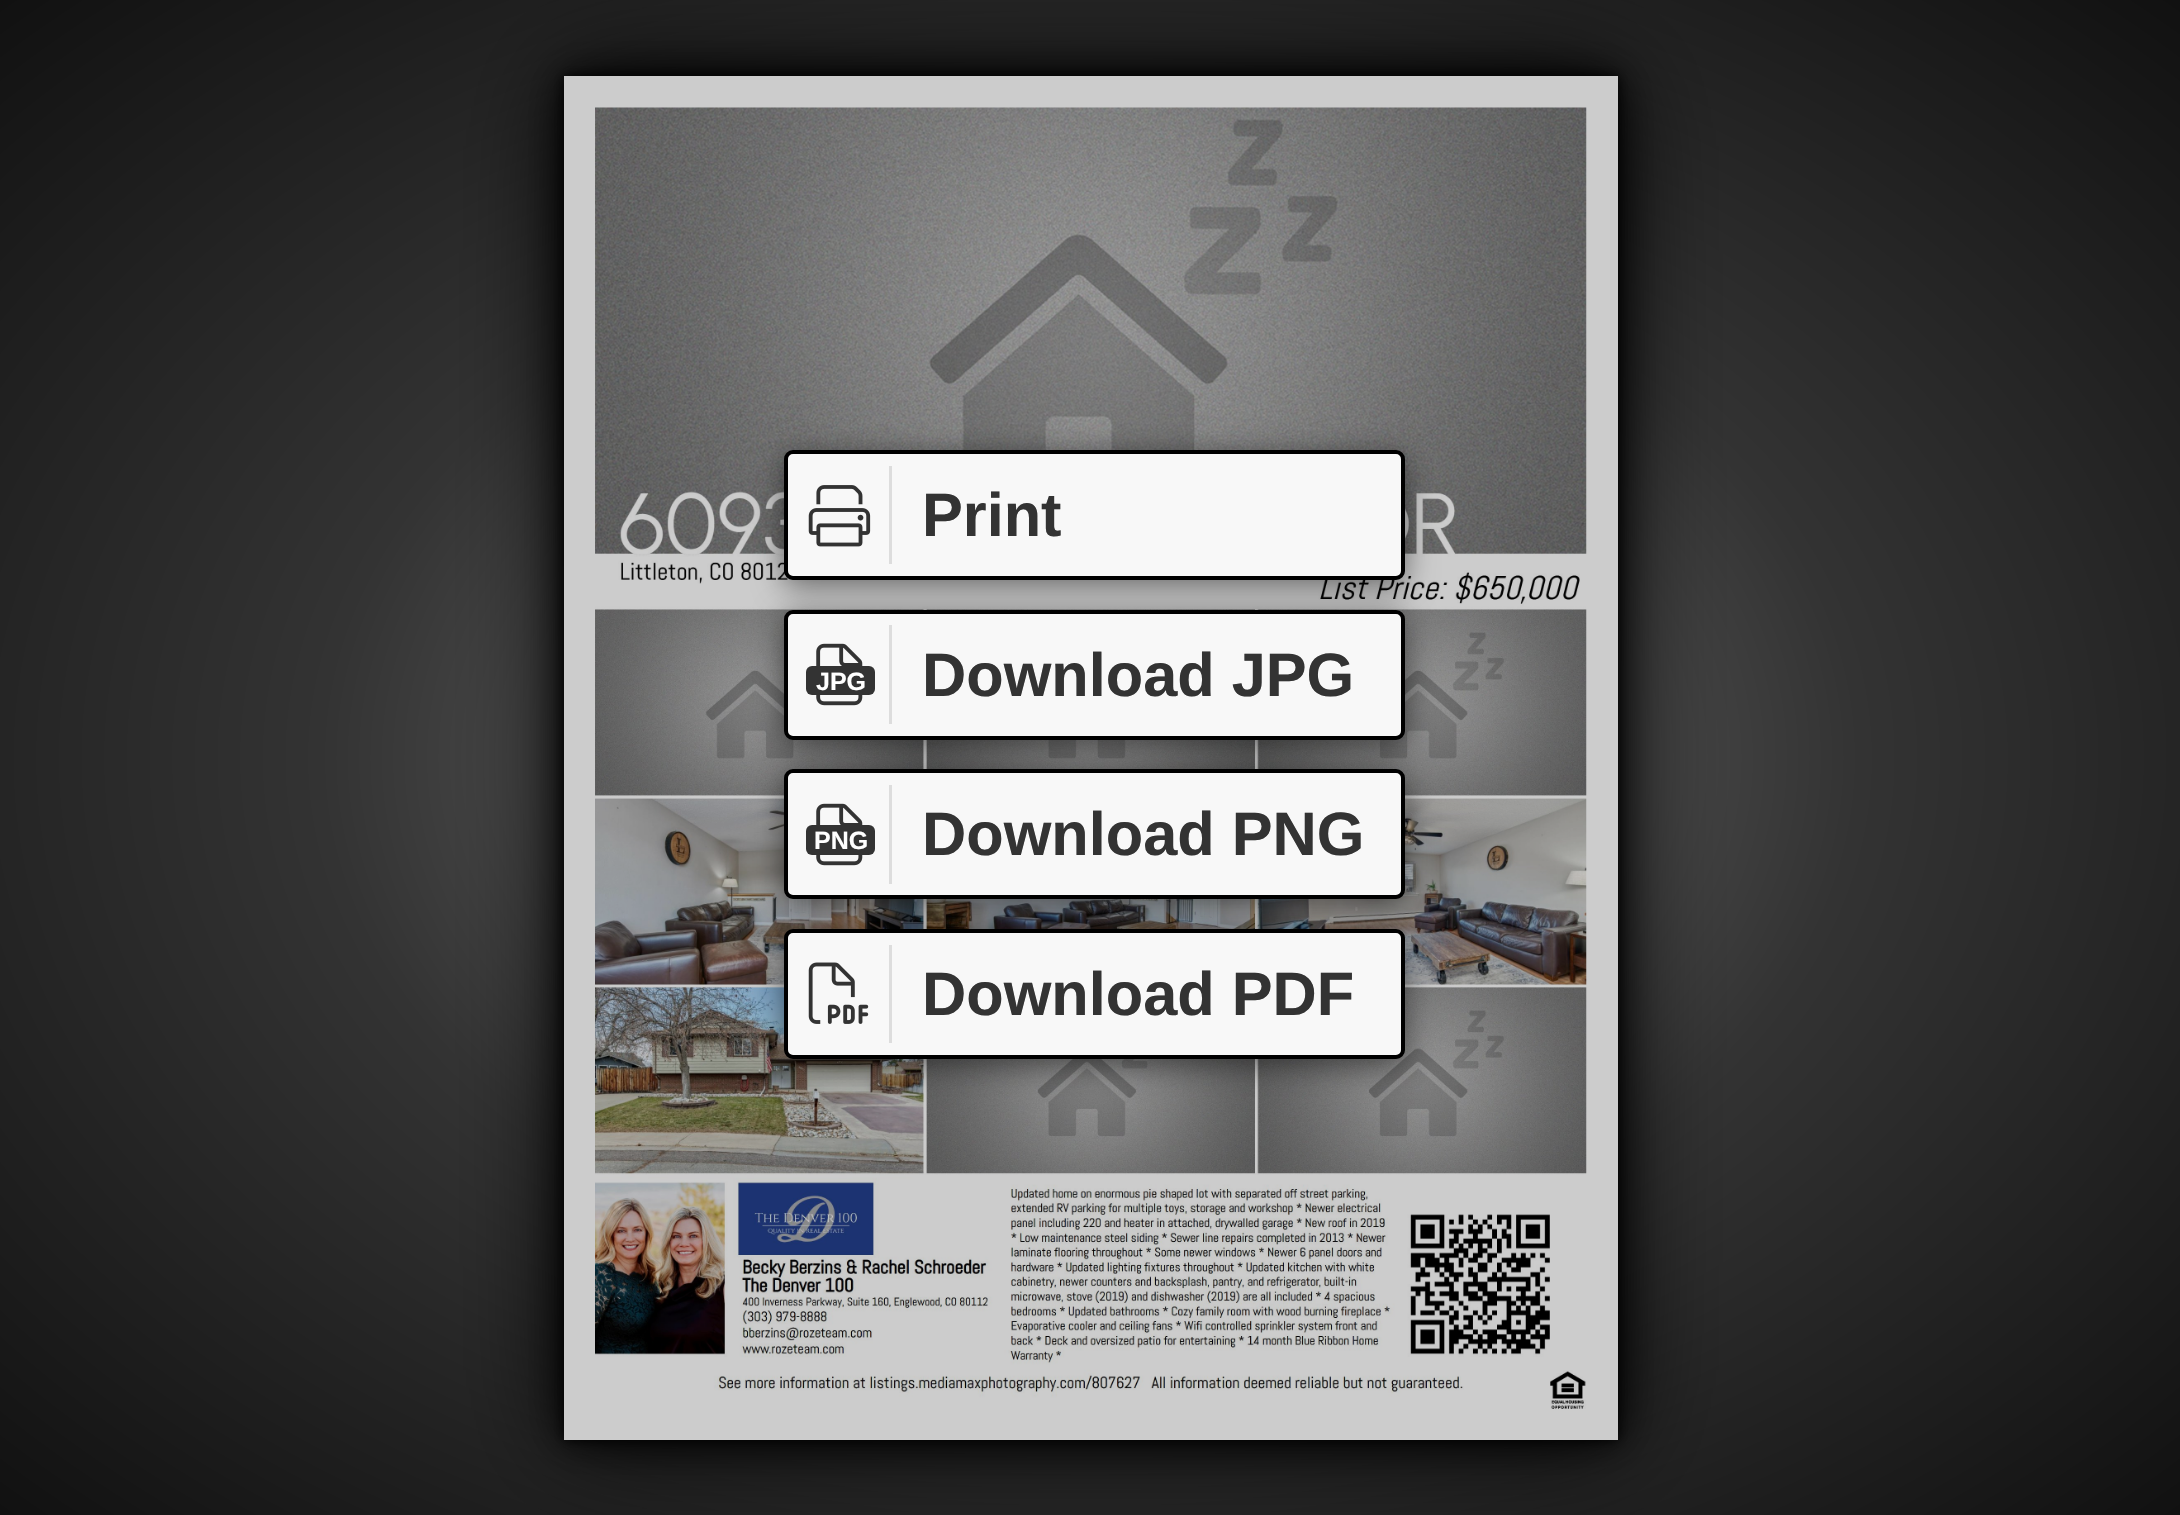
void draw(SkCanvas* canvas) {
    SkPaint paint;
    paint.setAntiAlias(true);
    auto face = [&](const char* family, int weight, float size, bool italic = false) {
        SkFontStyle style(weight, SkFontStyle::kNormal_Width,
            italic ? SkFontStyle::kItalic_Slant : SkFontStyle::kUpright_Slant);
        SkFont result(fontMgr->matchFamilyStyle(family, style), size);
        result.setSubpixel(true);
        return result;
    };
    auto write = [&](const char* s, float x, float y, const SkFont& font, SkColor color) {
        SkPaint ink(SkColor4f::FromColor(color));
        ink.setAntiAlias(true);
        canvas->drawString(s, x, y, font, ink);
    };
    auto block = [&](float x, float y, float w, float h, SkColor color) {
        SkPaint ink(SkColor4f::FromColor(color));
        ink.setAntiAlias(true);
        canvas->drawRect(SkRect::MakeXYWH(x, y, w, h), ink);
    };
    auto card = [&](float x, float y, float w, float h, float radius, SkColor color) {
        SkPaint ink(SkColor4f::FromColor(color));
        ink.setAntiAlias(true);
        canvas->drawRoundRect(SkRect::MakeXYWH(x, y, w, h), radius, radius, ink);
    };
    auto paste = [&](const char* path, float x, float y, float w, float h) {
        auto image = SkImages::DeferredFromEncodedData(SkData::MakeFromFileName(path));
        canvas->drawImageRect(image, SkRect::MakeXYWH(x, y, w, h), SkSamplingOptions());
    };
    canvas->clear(SK_ColorWHITE);
    {
        const SkColor colors[] = {SkColorSetRGB(136, 136, 136), SkColorSetRGB(85, 85, 85), SkColorSetRGB(51, 51, 51), SkColorSetRGB(34, 34, 34), SkColorSetRGB(17, 17, 17)};
        const float stops[] = {0, 0.25f, 0.5f, 0.75f, 1};
        SkMatrix m = SkMatrix::Translate(1090, 758).preScale(1541, 1071);
        paint.setShader(SkGradientShader::MakeRadial({0, 0}, 1, colors, stops, 5, SkTileMode::kClamp, 0, &m));
        paint.setAlpha(255);
    }
    canvas->drawRect(SkRect::MakeXYWH(0, 0, 2180, 1515), paint);
    paint.setShader(nullptr);
    paint.setColor(SK_ColorBLACK);
    paint.setMaskFilter(SkMaskFilter::MakeBlur(kNormal_SkBlurStyle, 50));
    canvas->drawRect(SkRect::MakeXYWH(564, 76, 1054, 1364), paint);
    paint.setMaskFilter(nullptr);
    paint.setMaskFilter(SkMaskFilter::MakeBlur(kNormal_SkBlurStyle, 19));
    canvas->drawRect(SkRect::MakeXYWH(564, 76, 1054, 1364), paint);
    paint.setMaskFilter(nullptr);
    paint.setMaskFilter(SkMaskFilter::MakeBlur(kNormal_SkBlurStyle, 6));
    canvas->drawRect(SkRect::MakeXYWH(564, 76, 1054, 1364), paint);
    paint.setMaskFilter(nullptr);
    block(564, 76, 1054, 1364, SK_ColorWHITE);
    paste("pic1.png", 595, 107, 992, 1302);
    block(564, 76, 1054, 1364, SkColorSetARGB(51, 0, 0, 0));
    paint.setColor(SkColorSetARGB(128, 0, 0, 0));
    paint.setMaskFilter(SkMaskFilter::MakeBlur(kNormal_SkBlurStyle, 15.5f));
    canvas->drawRoundRect(SkRect::MakeXYWH(784, 456, 621, 130), 9, 9, paint);
    paint.setMaskFilter(nullptr);
    paint.setColor(SkColorSetRGB(248, 248, 248));
    canvas->drawRoundRect(SkRect::MakeXYWH(786, 452, 617, 126), 7, 7, paint);
    paint.setStyle(SkPaint::kStroke_Style);
    paint.setStrokeWidth(4);
    paint.setColor(SK_ColorBLACK);
    canvas->drawRoundRect(SkRect::MakeXYWH(786, 452, 617, 126), 7, 7, paint);
    block(889, 466, 3, 98, SkColorSetRGB(221, 221, 221));
    paste("pic2.png", 808, 485, 63, 62);
    auto kFont1 = face("Liberation Sans", 700, 61.25f);
    write("Print", 922, 536, kFont1, SkColorSetRGB(51, 51, 51));
    paint.setStyle(SkPaint::kFill_Style);
    paint.setColor(SkColorSetARGB(128, 0, 0, 0));
    paint.setMaskFilter(SkMaskFilter::MakeBlur(kNormal_SkBlurStyle, 15.5f));
    canvas->drawRoundRect(SkRect::MakeXYWH(784, 616, 621, 130), 9, 9, paint);
    paint.setMaskFilter(nullptr);
    paint.setColor(SkColorSetRGB(248, 248, 248));
    canvas->drawRoundRect(SkRect::MakeXYWH(786, 612, 617, 126), 7, 7, paint);
    paint.setStyle(SkPaint::kStroke_Style);
    paint.setColor(SK_ColorBLACK);
    canvas->drawRoundRect(SkRect::MakeXYWH(786, 612, 617, 126), 7, 7, paint);
    block(889, 625, 3, 99, SkColorSetRGB(221, 221, 221));
    paste("pic3.png", 816, 643, 47, 63);
    card(806, 666, 69, 29, 6, SkColorSetRGB(51, 51, 51));
    auto kFont2 = face("Liberation Sans", 700, 25);
    write("JPG", 816, 690, kFont2, SK_ColorWHITE);
    write("Download JPG", 922, 696, kFont1, SkColorSetRGB(51, 51, 51));
    paint.setStyle(SkPaint::kFill_Style);
    paint.setColor(SkColorSetARGB(128, 0, 0, 0));
    paint.setMaskFilter(SkMaskFilter::MakeBlur(kNormal_SkBlurStyle, 15.5f));
    canvas->drawRoundRect(SkRect::MakeXYWH(784, 775, 621, 130), 9, 9, paint);
    paint.setMaskFilter(nullptr);
    paint.setColor(SkColorSetRGB(248, 248, 248));
    canvas->drawRoundRect(SkRect::MakeXYWH(786, 771, 617, 126), 7, 7, paint);
    paint.setStyle(SkPaint::kStroke_Style);
    paint.setColor(SK_ColorBLACK);
    canvas->drawRoundRect(SkRect::MakeXYWH(786, 771, 617, 126), 7, 7, paint);
    block(889, 785, 3, 99, SkColorSetRGB(221, 221, 221));
    paste("pic3.png", 816, 803, 47, 63);
    card(806, 825, 69, 30, 6, SkColorSetRGB(51, 51, 51));
    write("PNG", 814, 849, kFont2, SK_ColorWHITE);
    write("Download PNG", 922, 855, kFont1, SkColorSetRGB(51, 51, 51));
    paint.setStyle(SkPaint::kFill_Style);
    paint.setColor(SkColorSetARGB(128, 0, 0, 0));
    paint.setMaskFilter(SkMaskFilter::MakeBlur(kNormal_SkBlurStyle, 15.5f));
    canvas->drawRoundRect(SkRect::MakeXYWH(784, 935, 621, 130), 9, 9, paint);
    paint.setMaskFilter(nullptr);
    paint.setColor(SkColorSetRGB(248, 248, 248));
    canvas->drawRoundRect(SkRect::MakeXYWH(786, 931, 617, 126), 7, 7, paint);
    paint.setStyle(SkPaint::kStroke_Style);
    paint.setColor(SK_ColorBLACK);
    canvas->drawRoundRect(SkRect::MakeXYWH(786, 931, 617, 126), 7, 7, paint);
    block(889, 945, 3, 98, SkColorSetRGB(221, 221, 221));
    paste("pic4.png", 808, 962, 61, 62);
    write("Download PDF", 922, 1015, kFont1, SkColorSetRGB(51, 51, 51));
}
